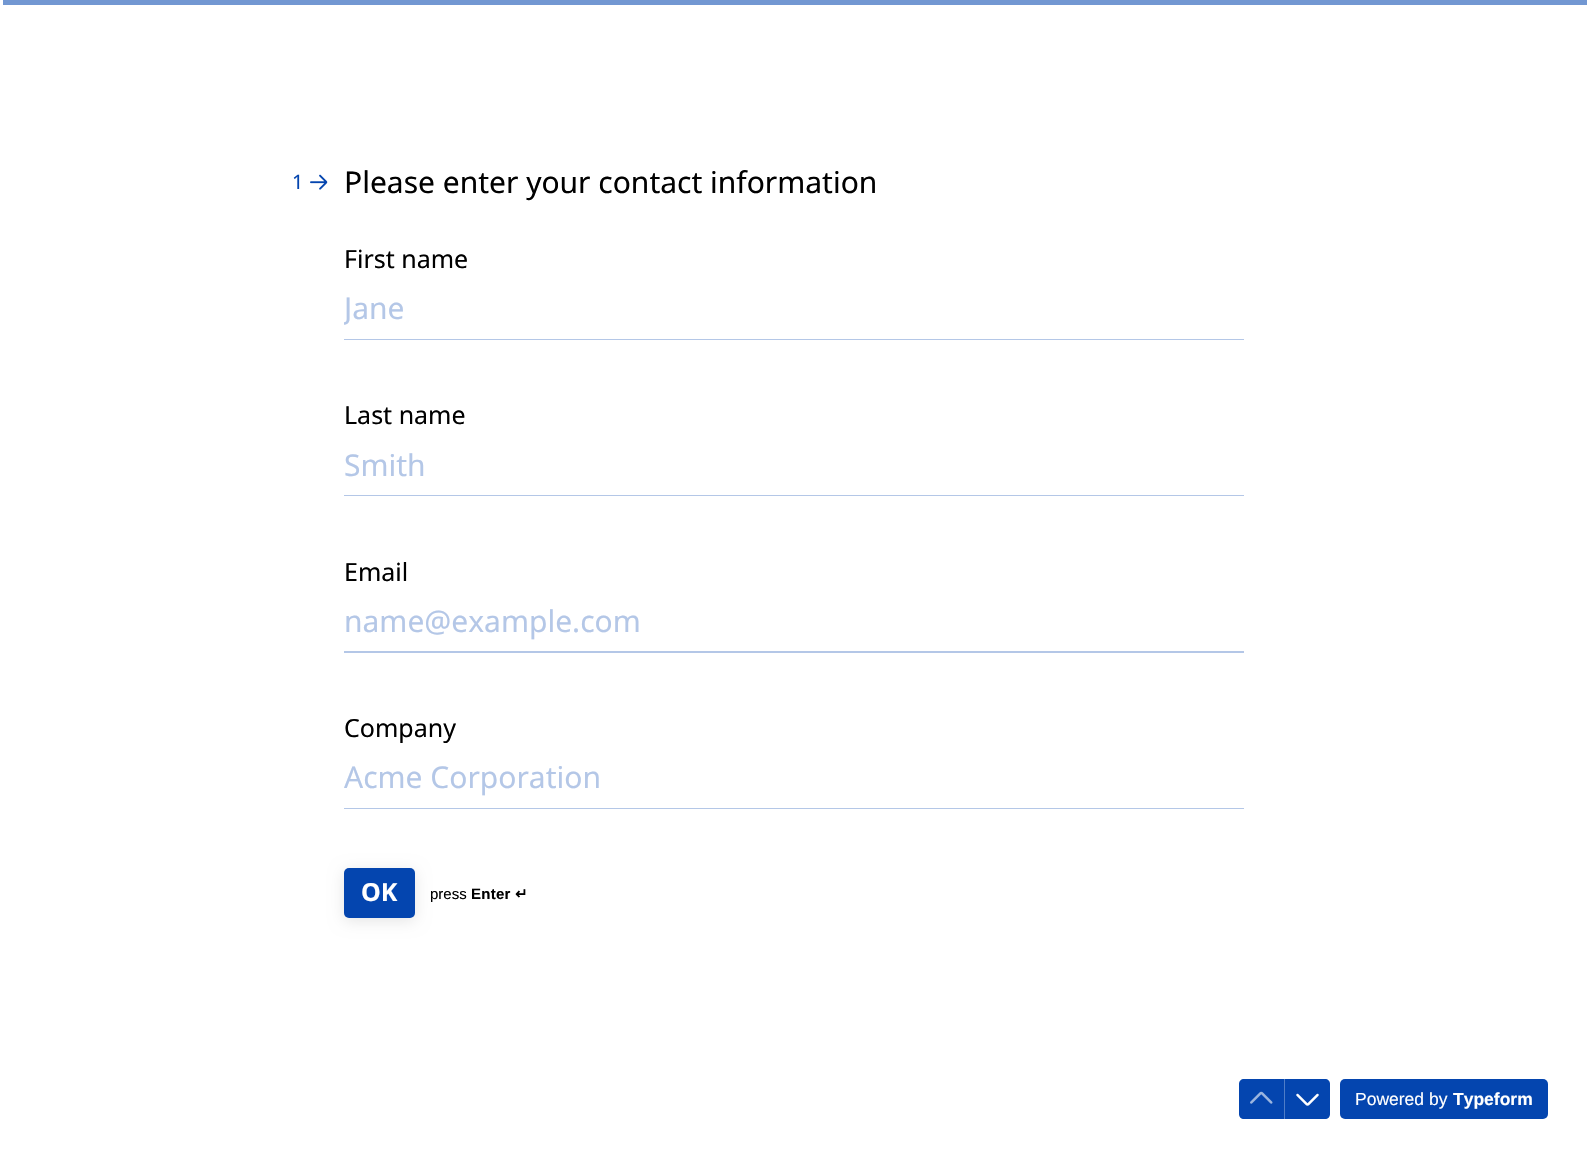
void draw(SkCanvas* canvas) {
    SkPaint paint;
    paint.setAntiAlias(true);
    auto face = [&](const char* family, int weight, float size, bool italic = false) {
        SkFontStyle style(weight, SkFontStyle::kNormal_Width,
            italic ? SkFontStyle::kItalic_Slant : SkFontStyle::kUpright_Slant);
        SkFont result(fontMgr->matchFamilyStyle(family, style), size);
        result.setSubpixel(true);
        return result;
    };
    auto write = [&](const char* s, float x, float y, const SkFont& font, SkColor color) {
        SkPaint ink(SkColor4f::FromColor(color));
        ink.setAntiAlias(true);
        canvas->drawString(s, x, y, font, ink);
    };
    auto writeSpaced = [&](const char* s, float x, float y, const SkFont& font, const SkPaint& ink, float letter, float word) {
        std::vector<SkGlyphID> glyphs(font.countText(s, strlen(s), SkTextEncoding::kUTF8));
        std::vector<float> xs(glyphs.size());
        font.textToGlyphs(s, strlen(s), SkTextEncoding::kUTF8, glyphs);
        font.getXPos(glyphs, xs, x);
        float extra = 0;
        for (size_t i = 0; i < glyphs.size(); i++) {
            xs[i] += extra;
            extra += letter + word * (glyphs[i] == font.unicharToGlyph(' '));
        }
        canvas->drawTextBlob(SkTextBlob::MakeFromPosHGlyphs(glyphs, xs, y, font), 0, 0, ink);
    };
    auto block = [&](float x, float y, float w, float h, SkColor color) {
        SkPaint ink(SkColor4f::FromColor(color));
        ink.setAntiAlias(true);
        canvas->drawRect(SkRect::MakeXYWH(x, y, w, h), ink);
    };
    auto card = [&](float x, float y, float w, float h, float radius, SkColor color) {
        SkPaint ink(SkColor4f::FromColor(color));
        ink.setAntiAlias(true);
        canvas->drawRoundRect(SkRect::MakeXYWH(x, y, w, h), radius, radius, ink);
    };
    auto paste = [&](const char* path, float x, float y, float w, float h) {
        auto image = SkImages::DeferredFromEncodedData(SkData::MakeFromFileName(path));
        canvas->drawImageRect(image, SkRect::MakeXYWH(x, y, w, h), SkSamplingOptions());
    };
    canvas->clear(SK_ColorWHITE);
    block(0, 0, 1587, 5, SkColorSetRGB(114, 151, 210));
    block(0, 0, 3, 5, SK_ColorWHITE);
    auto kFont1 = face("Noto Sans", 400, 20);
    write("1", 292, 189, kFont1, SkColorSetRGB(4, 69, 175));
    paste("pic1.png", 310, 174, 18, 16);
    auto kFont2 = face("Noto Sans", 400, 30);
    write("Please enter your contact information", 344, 193, kFont2, SK_ColorBLACK);
    auto kFont3 = face("Noto Sans", 400, 25);
    write("First name", 344, 268, kFont3, SK_ColorBLACK);
    paint.setColor(SkColorSetRGB(180, 199, 231));
    canvas->drawPath(SkPathBuilder().moveTo(344, 339).lineTo(344, 340).lineTo(1244, 340).lineTo(1244, 289).lineTo(1244, 339).close().detach(), paint);
    canvas->save();
    canvas->clipRect(SkRect::MakeXYWH(344, 288, 900, 41));
    write("Jane", 344, 319, kFont2, SkColorSetRGB(180, 199, 231));
    canvas->restore();
    write("Last name", 344, 424, kFont3, SK_ColorBLACK);
    canvas->drawPath(SkPathBuilder().moveTo(344, 495).lineTo(344, 496).lineTo(1244, 496).lineTo(1244, 445).lineTo(1244, 495).close().detach(), paint);
    write("Smith", 344, 476, kFont2, SkColorSetRGB(180, 199, 231));
    write("Email", 344, 581, kFont3, SK_ColorBLACK);
    canvas->drawPath(SkPathBuilder().moveTo(344, 651).lineTo(344, 653).lineTo(1244, 653).lineTo(1244, 601).lineTo(1244, 651).close().detach(), paint);
    write("name@example.com", 344, 632, kFont2, SkColorSetRGB(180, 199, 231));
    write("Company", 344, 737, kFont3, SK_ColorBLACK);
    canvas->drawPath(SkPathBuilder().moveTo(344, 808).lineTo(344, 809).lineTo(1244, 809).lineTo(1244, 758).lineTo(1244, 808).close().detach(), paint);
    write("Acme Corporation", 344, 788, kFont2, SkColorSetRGB(180, 199, 231));
    paint.setColor(SkColorSetARGB(26, 0, 0, 0));
    paint.setMaskFilter(SkMaskFilter::MakeBlur(kNormal_SkBlurStyle, 7.5f));
    canvas->drawRoundRect(SkRect::MakeXYWH(344, 871, 71, 50), 5, 5, paint);
    paint.setMaskFilter(nullptr);
    card(344, 868, 71, 50, 5, SkColorSetRGB(4, 69, 175));
    auto kFont4 = face("Noto Sans", 700, 25);
    write("OK", 361, 901, kFont4, SK_ColorWHITE);
    auto kFont5 = face("Liberation Sans", 400, 15);
    write("press", 430, 899, kFont5, SK_ColorBLACK);
    auto kFont6 = face("Liberation Sans", 700, 15);
    paint.setColor(SK_ColorBLACK);
    writeSpaced("Enter", 471, 899, kFont6, paint, 0.25f, 0);
    auto kFont7 = face("DejaVu Sans", 700, 15);
    writeSpaced("↵", 515, 899, kFont7, paint, 0.25f, 0);
    paint.setColor(SkColorSetRGB(4, 69, 175));
    canvas->drawPath(SkPathBuilder().moveTo(1244, 1079).lineTo(1284, 1079).lineTo(1284, 1119).lineTo(1244, 1119).cubicTo(1241, 1119, 1239, 1117, 1239, 1114).lineTo(1239, 1084).cubicTo(1239, 1081, 1241, 1079, 1244, 1079).close().detach(), paint);
    paste("pic2.png", 1250, 1091, 23, 13);
    block(1284, 1079, 1, 40, SkColorSetRGB(79, 125, 199));
    canvas->drawPath(SkPathBuilder().moveTo(1285, 1079).lineTo(1325, 1079).cubicTo(1328, 1079, 1330, 1081, 1330, 1084).lineTo(1330, 1114).cubicTo(1330, 1117, 1328, 1119, 1325, 1119).lineTo(1285, 1119).close().detach(), paint);
    paste("pic3.png", 1296, 1093, 23, 13);
    card(1340, 1079, 208, 40, 5, SkColorSetRGB(4, 69, 175));
    auto kFont8 = face("Liberation Sans", 400, 17.5f);
    write("Powered by", 1355, 1105, kFont8, SK_ColorWHITE);
    auto kFont9 = face("Liberation Sans", 700, 17.5f);
    write("Typeform", 1453, 1105, kFont9, SK_ColorWHITE);
}
